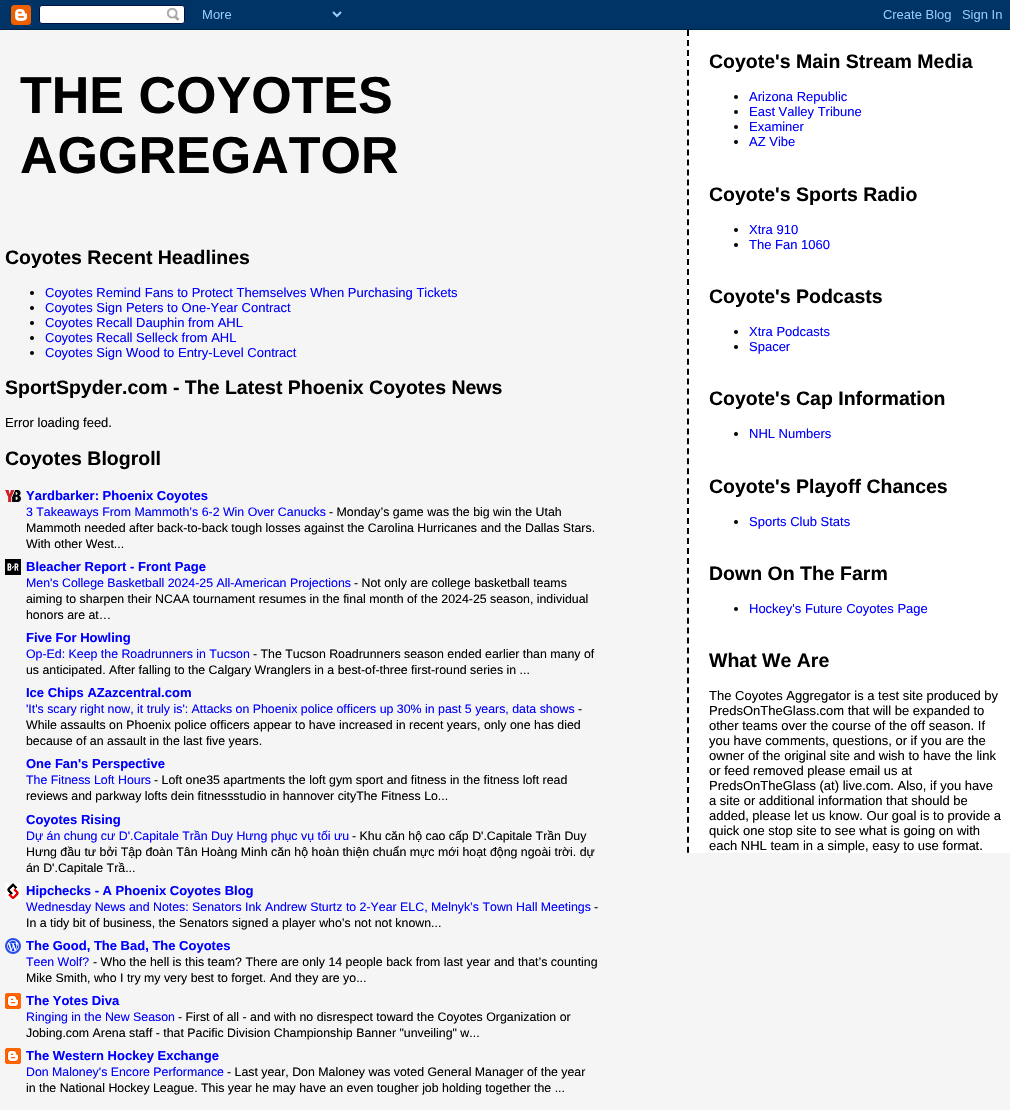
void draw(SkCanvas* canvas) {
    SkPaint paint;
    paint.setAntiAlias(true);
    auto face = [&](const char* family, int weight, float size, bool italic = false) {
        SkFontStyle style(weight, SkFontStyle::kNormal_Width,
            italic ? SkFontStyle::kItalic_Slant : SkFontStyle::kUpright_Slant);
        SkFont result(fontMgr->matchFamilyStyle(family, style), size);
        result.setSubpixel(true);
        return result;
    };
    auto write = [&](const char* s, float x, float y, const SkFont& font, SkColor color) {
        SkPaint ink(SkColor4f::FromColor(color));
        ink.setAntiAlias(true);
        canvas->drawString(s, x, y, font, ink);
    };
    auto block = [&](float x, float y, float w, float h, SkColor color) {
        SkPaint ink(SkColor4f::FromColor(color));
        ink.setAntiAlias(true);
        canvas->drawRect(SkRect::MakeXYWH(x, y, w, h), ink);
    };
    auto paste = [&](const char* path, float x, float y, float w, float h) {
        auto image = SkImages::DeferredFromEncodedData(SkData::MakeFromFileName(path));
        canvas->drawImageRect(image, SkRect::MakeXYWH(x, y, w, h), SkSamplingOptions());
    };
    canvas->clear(SkColorSetRGB(245, 245, 245));
    paste("pic1.png", 0, 0, 1010, 30);
    auto kFont1 = face("Liberation Sans", 700, 52);
    write("THE COYOTES", 20, 113, kFont1, SK_ColorBLACK);
    write("AGGREGATOR", 20, 173, kFont1, SK_ColorBLACK);
    auto kFont2 = face("Liberation Sans", 700, 19.5f);
    write("Coyotes Recent Headlines", 5, 264, kFont2, SK_ColorBLACK);
    paint.setColor(SK_ColorBLACK);
    canvas->drawCircle(32, 293, 2, paint);
    auto kFont3 = face("Liberation Sans", 400, 13);
    write("Coyotes Remind Fans to Protect Themselves When Purchasing Tickets", 45, 297, kFont3, SkColorSetRGB(0, 0, 255));
    canvas->drawCircle(32, 308, 2, paint);
    write("Coyotes Sign Peters to One-Year Contract", 45, 312, kFont3, SkColorSetRGB(0, 0, 255));
    canvas->drawCircle(32, 323, 2, paint);
    write("Coyotes Recall Dauphin from AHL", 45, 327, kFont3, SkColorSetRGB(0, 0, 255));
    canvas->drawCircle(32, 338, 2, paint);
    write("Coyotes Recall Selleck from AHL", 45, 342, kFont3, SkColorSetRGB(0, 0, 255));
    canvas->drawCircle(32, 353, 2, paint);
    write("Coyotes Sign Wood to Entry-Level Contract", 45, 357, kFont3, SkColorSetRGB(0, 0, 255));
    write("SportSpyder.com - The Latest Phoenix Coyotes News", 5, 394, kFont2, SK_ColorBLACK);
    write("Error loading feed.", 5, 427, kFont3, SK_ColorBLACK);
    write("Coyotes Blogroll", 5, 465, kFont2, SK_ColorBLACK);
    paste("pic2.png", 5, 490, 16, 12);
    auto kFont4 = face("Liberation Sans", 700, 13);
    write("Yardbarker: Phoenix Coyotes", 26, 500, kFont4, SkColorSetRGB(0, 0, 255));
    auto kFont5 = face("Liberation Sans", 400, 12.35f);
    write("3 Takeaways From Mammoth’s 6-2 Win Over Canucks", 26, 516, kFont5, SkColorSetRGB(0, 0, 255));
    write("- Monday’s game was the big win the Utah", 329, 516, kFont5, SK_ColorBLACK);
    write("Mammoth needed after back-to-back tough losses against the Carolina Hurricanes and the Dallas Stars.", 26, 532, kFont5, SK_ColorBLACK);
    write("With other West...", 26, 548, kFont5, SK_ColorBLACK);
    paste("pic3.png", 5, 559, 16, 16);
    write("Bleacher Report - Front Page", 26, 571, kFont4, SkColorSetRGB(0, 0, 255));
    write("Men's College Basketball 2024-25 All-American Projections", 26, 587, kFont5, SkColorSetRGB(0, 0, 255));
    write("- Not only are college basketball teams", 354, 587, kFont5, SK_ColorBLACK);
    write("aiming to sharpen their NCAA tournament resumes in the final month of the 2024-25 season, individual", 26, 603, kFont5, SK_ColorBLACK);
    write("honors are at…", 26, 619, kFont5, SK_ColorBLACK);
    write("Five For Howling", 26, 642, kFont4, SkColorSetRGB(0, 0, 255));
    write("Op-Ed: Keep the Roadrunners in Tucson", 26, 658, kFont5, SkColorSetRGB(0, 0, 255));
    write("- The Tucson Roadrunners season ended earlier than many of", 253, 658, kFont5, SK_ColorBLACK);
    write("us anticipated. After falling to the Calgary Wranglers in a best-of-three first-round series in ...", 26, 674, kFont5, SK_ColorBLACK);
    write("Ice Chips AZazcentral.com", 26, 697, kFont4, SkColorSetRGB(0, 0, 255));
    write("'It's scary right now, it truly is': Attacks on Phoenix police officers up 30% in past 5 years, data shows", 26, 713, kFont5, SkColorSetRGB(0, 0, 255));
    write("-", 578, 713, kFont5, SK_ColorBLACK);
    write("While assaults on Phoenix police officers appear to have increased in recent years, only one has died", 26, 729, kFont5, SK_ColorBLACK);
    write("because of an assault in the last five years.", 26, 745, kFont5, SK_ColorBLACK);
    write("One Fan's Perspective", 26, 768, kFont4, SkColorSetRGB(0, 0, 255));
    write("The Fitness Loft Hours", 26, 784, kFont5, SkColorSetRGB(0, 0, 255));
    write("- Loft one35 apartments the loft gym sport and fitness in the fitness loft read", 154, 784, kFont5, SK_ColorBLACK);
    write("reviews and parkway lofts dein fitnessstudio in hannover cityThe Fitness Lo...", 26, 800, kFont5, SK_ColorBLACK);
    write("Coyotes Rising", 26, 824, kFont4, SkColorSetRGB(0, 0, 255));
    write("Dự án chung cư D'.Capitale Trần Duy Hưng phục vụ tối ưu", 26, 840, kFont5, SkColorSetRGB(0, 0, 255));
    write("- Khu căn hộ cao cấp D'.Capitale Trần Duy", 352, 840, kFont5, SK_ColorBLACK);
    write("Hưng đầu tư bởi Tập đoàn Tân Hoàng Minh căn hộ hoàn thiện chuẩn mực mới hoạt động ngoài trời. dự", 26, 856, kFont5, SK_ColorBLACK);
    write("án D'.Capitale Trầ...", 26, 872, kFont5, SK_ColorBLACK);
    paste("pic4.png", 5, 883, 16, 16);
    write("Hipchecks - A Phoenix Coyotes Blog", 26, 895, kFont4, SkColorSetRGB(0, 0, 255));
    write("Wednesday News and Notes: Senators Ink Andrew Sturtz to 2-Year ELC, Melnyk’s Town Hall Meetings", 26, 911, kFont5, SkColorSetRGB(0, 0, 255));
    write("-", 594, 911, kFont5, SK_ColorBLACK);
    write("In a tidy bit of business, the Senators signed a player who’s not not known...", 26, 927, kFont5, SK_ColorBLACK);
    paste("pic5.png", 5, 938, 16, 16);
    write("The Good, The Bad, The Coyotes", 26, 950, kFont4, SkColorSetRGB(0, 0, 255));
    write("Teen Wolf?", 26, 966, kFont5, SkColorSetRGB(0, 0, 255));
    write("- Who the hell is this team? There are only 14 people back from last year and that’s counting", 93, 966, kFont5, SK_ColorBLACK);
    write("Mike Smith, who I try my very best to forget. And they are yo...", 26, 982, kFont5, SK_ColorBLACK);
    paste("pic6.png", 5, 993, 16, 16);
    write("The Yotes Diva", 26, 1005, kFont4, SkColorSetRGB(0, 0, 255));
    write("Ringing in the New Season", 26, 1021, kFont5, SkColorSetRGB(0, 0, 255));
    write("- First of all - and with no disrespect toward the Coyotes Organization or", 178, 1021, kFont5, SK_ColorBLACK);
    write("Jobing.com Arena staff - that Pacific Division Championship Banner \"unveiling\" w...", 26, 1037, kFont5, SK_ColorBLACK);
    paste("pic6.png", 5, 1048, 16, 16);
    write("The Western Hockey Exchange", 26, 1060, kFont4, SkColorSetRGB(0, 0, 255));
    write("Don Maloney's Encore Performance", 26, 1076, kFont5, SkColorSetRGB(0, 0, 255));
    write("- Last year, Don Maloney was voted General Manager of the year", 227, 1076, kFont5, SK_ColorBLACK);
    write("in the National Hockey League. This year he may have an even tougher job holding together the ...", 26, 1092, kFont5, SK_ColorBLACK);
    block(687, 30, 323, 823, SK_ColorWHITE);
    paint.setStyle(SkPaint::kStroke_Style);
    paint.setStrokeWidth(2);
    paint.setPathEffect(SkDashPathEffect::Make({{6, 3.96f}}, 0));
    canvas->drawPath(SkPathBuilder().moveTo(688, 30).lineTo(688, 853).detach(), paint);
    paint.setPathEffect(nullptr);
    write("Coyote's Main Stream Media", 709, 68, kFont2, SK_ColorBLACK);
    paint.setStyle(SkPaint::kFill_Style);
    canvas->drawCircle(736, 97, 2, paint);
    write("Arizona Republic", 749, 101, kFont3, SkColorSetRGB(0, 0, 255));
    canvas->drawCircle(736, 112, 2, paint);
    write("East Valley Tribune", 749, 116, kFont3, SkColorSetRGB(0, 0, 255));
    canvas->drawCircle(736, 127, 2, paint);
    write("Examiner", 749, 131, kFont3, SkColorSetRGB(0, 0, 255));
    canvas->drawCircle(736, 142, 2, paint);
    write("AZ Vibe", 749, 146, kFont3, SkColorSetRGB(0, 0, 255));
    write("Coyote's Sports Radio", 709, 201, kFont2, SK_ColorBLACK);
    canvas->drawCircle(736, 230, 2, paint);
    write("Xtra 910", 749, 234, kFont3, SkColorSetRGB(0, 0, 255));
    canvas->drawCircle(736, 245, 2, paint);
    write("The Fan 1060", 749, 249, kFont3, SkColorSetRGB(0, 0, 255));
    write("Coyote's Podcasts", 709, 303, kFont2, SK_ColorBLACK);
    canvas->drawCircle(736, 332, 2, paint);
    write("Xtra Podcasts", 749, 336, kFont3, SkColorSetRGB(0, 0, 255));
    canvas->drawCircle(736, 347, 2, paint);
    write("Spacer", 749, 351, kFont3, SkColorSetRGB(0, 0, 255));
    write("Coyote's Cap Information", 709, 405, kFont2, SK_ColorBLACK);
    canvas->drawCircle(736, 434, 2, paint);
    write("NHL Numbers", 749, 438, kFont3, SkColorSetRGB(0, 0, 255));
    write("Coyote's Playoff Chances", 709, 493, kFont2, SK_ColorBLACK);
    canvas->drawCircle(736, 522, 2, paint);
    write("Sports Club Stats", 749, 526, kFont3, SkColorSetRGB(0, 0, 255));
    write("Down On The Farm", 709, 580, kFont2, SK_ColorBLACK);
    canvas->drawCircle(736, 609, 2, paint);
    write("Hockey's Future Coyotes Page", 749, 613, kFont3, SkColorSetRGB(0, 0, 255));
    write("What We Are", 709, 667, kFont2, SK_ColorBLACK);
    write("The Coyotes Aggregator is a test site produced by", 709, 700, kFont3, SK_ColorBLACK);
    write("PredsOnTheGlass.com that will be expanded to", 709, 715, kFont3, SK_ColorBLACK);
    write("other teams over the course of the off season. If", 709, 730, kFont3, SK_ColorBLACK);
    write("you have comments, questions, or if you are the", 709, 745, kFont3, SK_ColorBLACK);
    write("owner of the original site and wish to have the link", 709, 760, kFont3, SK_ColorBLACK);
    write("or feed removed please email us at", 709, 775, kFont3, SK_ColorBLACK);
    write("PredsOnTheGlass (at) live.com. Also, if you have", 709, 790, kFont3, SK_ColorBLACK);
    write("a site or additional information that should be", 709, 805, kFont3, SK_ColorBLACK);
    write("added, please let us know. Our goal is to provide a", 709, 820, kFont3, SK_ColorBLACK);
    write("quick one stop site to see what is going on with", 709, 835, kFont3, SK_ColorBLACK);
    write("each NHL team in a simple, easy to use format.", 709, 850, kFont3, SK_ColorBLACK);
}
